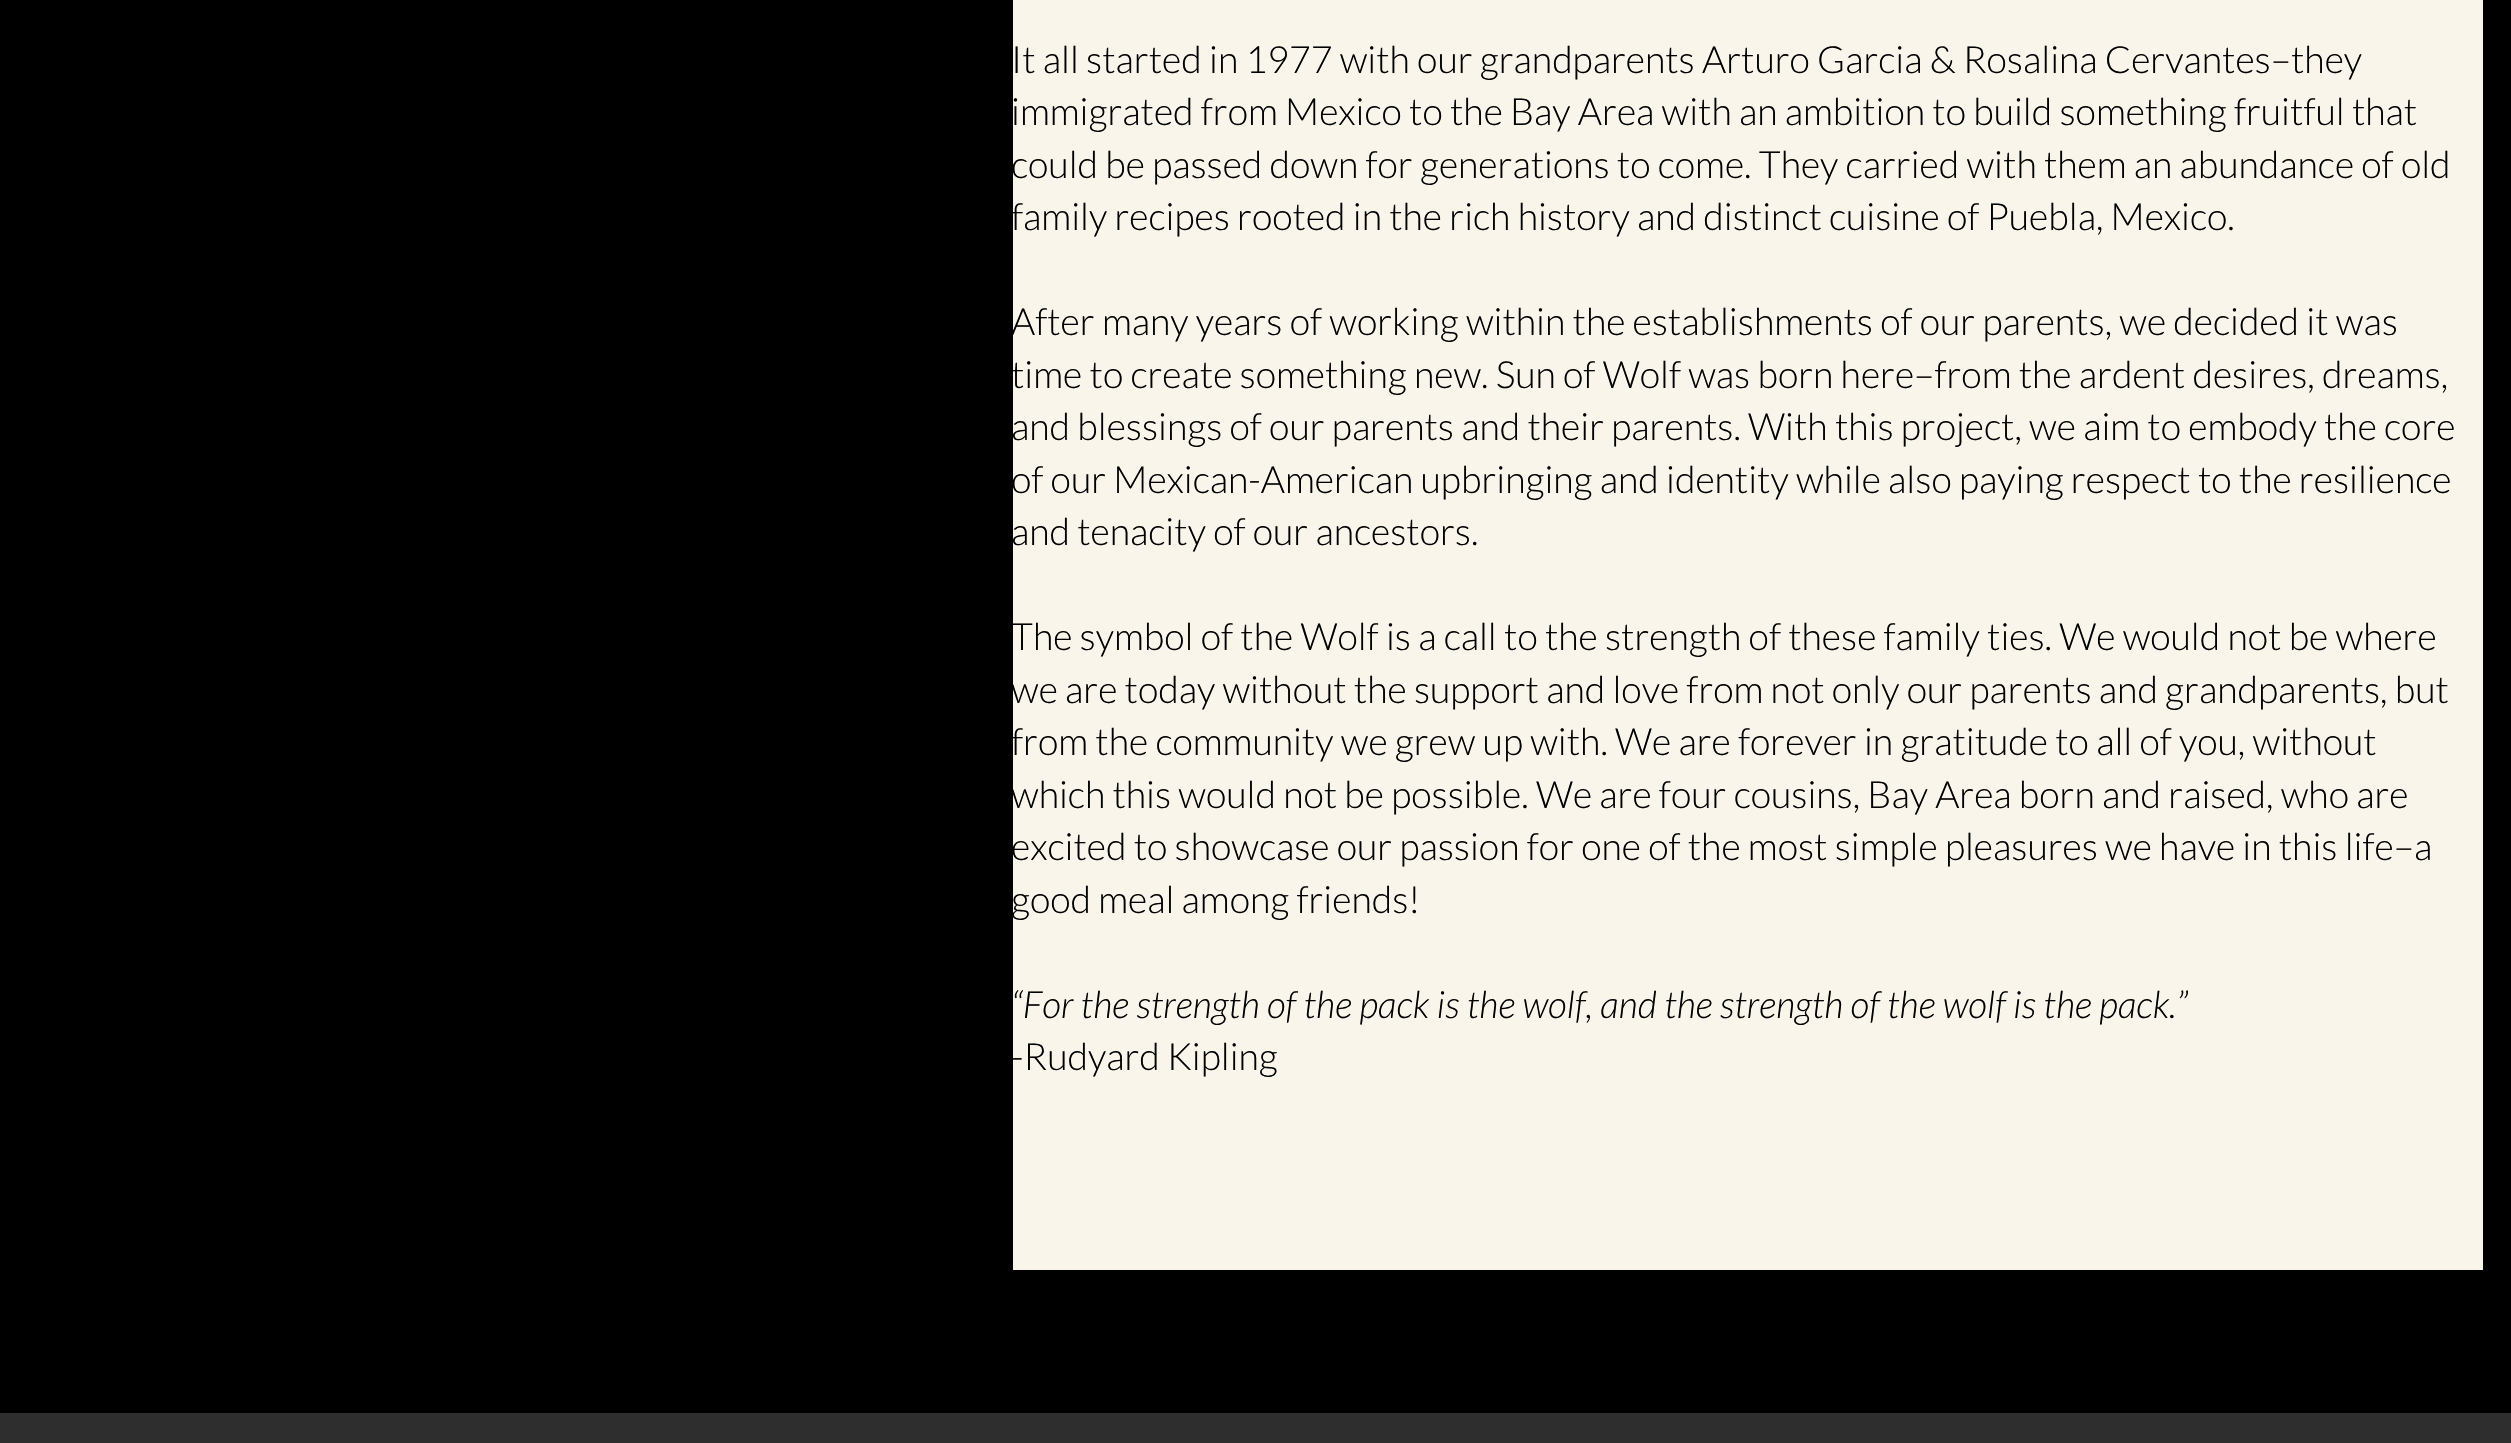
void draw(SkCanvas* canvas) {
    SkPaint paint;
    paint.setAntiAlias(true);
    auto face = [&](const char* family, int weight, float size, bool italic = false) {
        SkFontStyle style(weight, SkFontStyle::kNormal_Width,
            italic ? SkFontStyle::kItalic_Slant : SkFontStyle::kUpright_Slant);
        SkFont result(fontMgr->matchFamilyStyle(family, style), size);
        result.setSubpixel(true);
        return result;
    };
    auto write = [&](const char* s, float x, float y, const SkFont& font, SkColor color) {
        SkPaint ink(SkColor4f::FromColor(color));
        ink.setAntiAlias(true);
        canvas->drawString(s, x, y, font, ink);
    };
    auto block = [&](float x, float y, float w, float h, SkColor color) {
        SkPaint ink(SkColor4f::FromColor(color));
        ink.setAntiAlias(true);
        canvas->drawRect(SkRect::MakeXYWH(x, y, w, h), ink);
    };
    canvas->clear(SK_ColorBLACK);
    block(1013, 0, 1470, 1270, SkColorSetRGB(250, 245, 235));
    auto kFont1 = face("Lato", 300, 37.5f);
    write("It all started in 1977 with our grandparents Arturo Garcia & Rosalina Cervantes–they", 1011, 73, kFont1, SK_ColorBLACK);
    write("immigrated from Mexico to the Bay Area with an ambition to build something fruitful that", 1011, 125, kFont1, SK_ColorBLACK);
    write("could be passed down for generations to come. They carried with them an abundance of old", 1011, 178, kFont1, SK_ColorBLACK);
    write("family recipes rooted in the rich history and distinct cuisine of Puebla, Mexico.", 1011, 230, kFont1, SK_ColorBLACK);
    write("After many years of working within the establishments of our parents, we decided it was", 1011, 335, kFont1, SK_ColorBLACK);
    write("time to create something new. Sun of Wolf was born here–from the ardent desires, dreams,", 1011, 388, kFont1, SK_ColorBLACK);
    write("and blessings of our parents and their parents. With this project, we aim to embody the core", 1011, 440, kFont1, SK_ColorBLACK);
    write("of our Mexican-American upbringing and identity while also paying respect to the resilience", 1011, 493, kFont1, SK_ColorBLACK);
    write("and tenacity of our ancestors.", 1011, 545, kFont1, SK_ColorBLACK);
    write("The symbol of the Wolf is a call to the strength of these family ties. We would not be where", 1011, 650, kFont1, SK_ColorBLACK);
    write("we are today without the support and love from not only our parents and grandparents, but", 1011, 703, kFont1, SK_ColorBLACK);
    write("from the community we grew up with. We are forever in gratitude to all of you, without", 1011, 755, kFont1, SK_ColorBLACK);
    write("which this would not be possible. We are four cousins, Bay Area born and raised, who are", 1011, 808, kFont1, SK_ColorBLACK);
    write("excited to showcase our passion for one of the most simple pleasures we have in this life–a", 1011, 860, kFont1, SK_ColorBLACK);
    write("good meal among friends!", 1011, 913, kFont1, SK_ColorBLACK);
    auto kFont2 = face("Lato", 300, 37.5f, true);
    write("“For the strength of the pack is the wolf, and the strength of the wolf is the pack.”", 1011, 1018, kFont2, SK_ColorBLACK);
    write("-Rudyard Kipling", 1011, 1070, kFont1, SK_ColorBLACK);
    block(0, 1413, 2511, 30, SkColorSetRGB(47, 46, 46));
}
